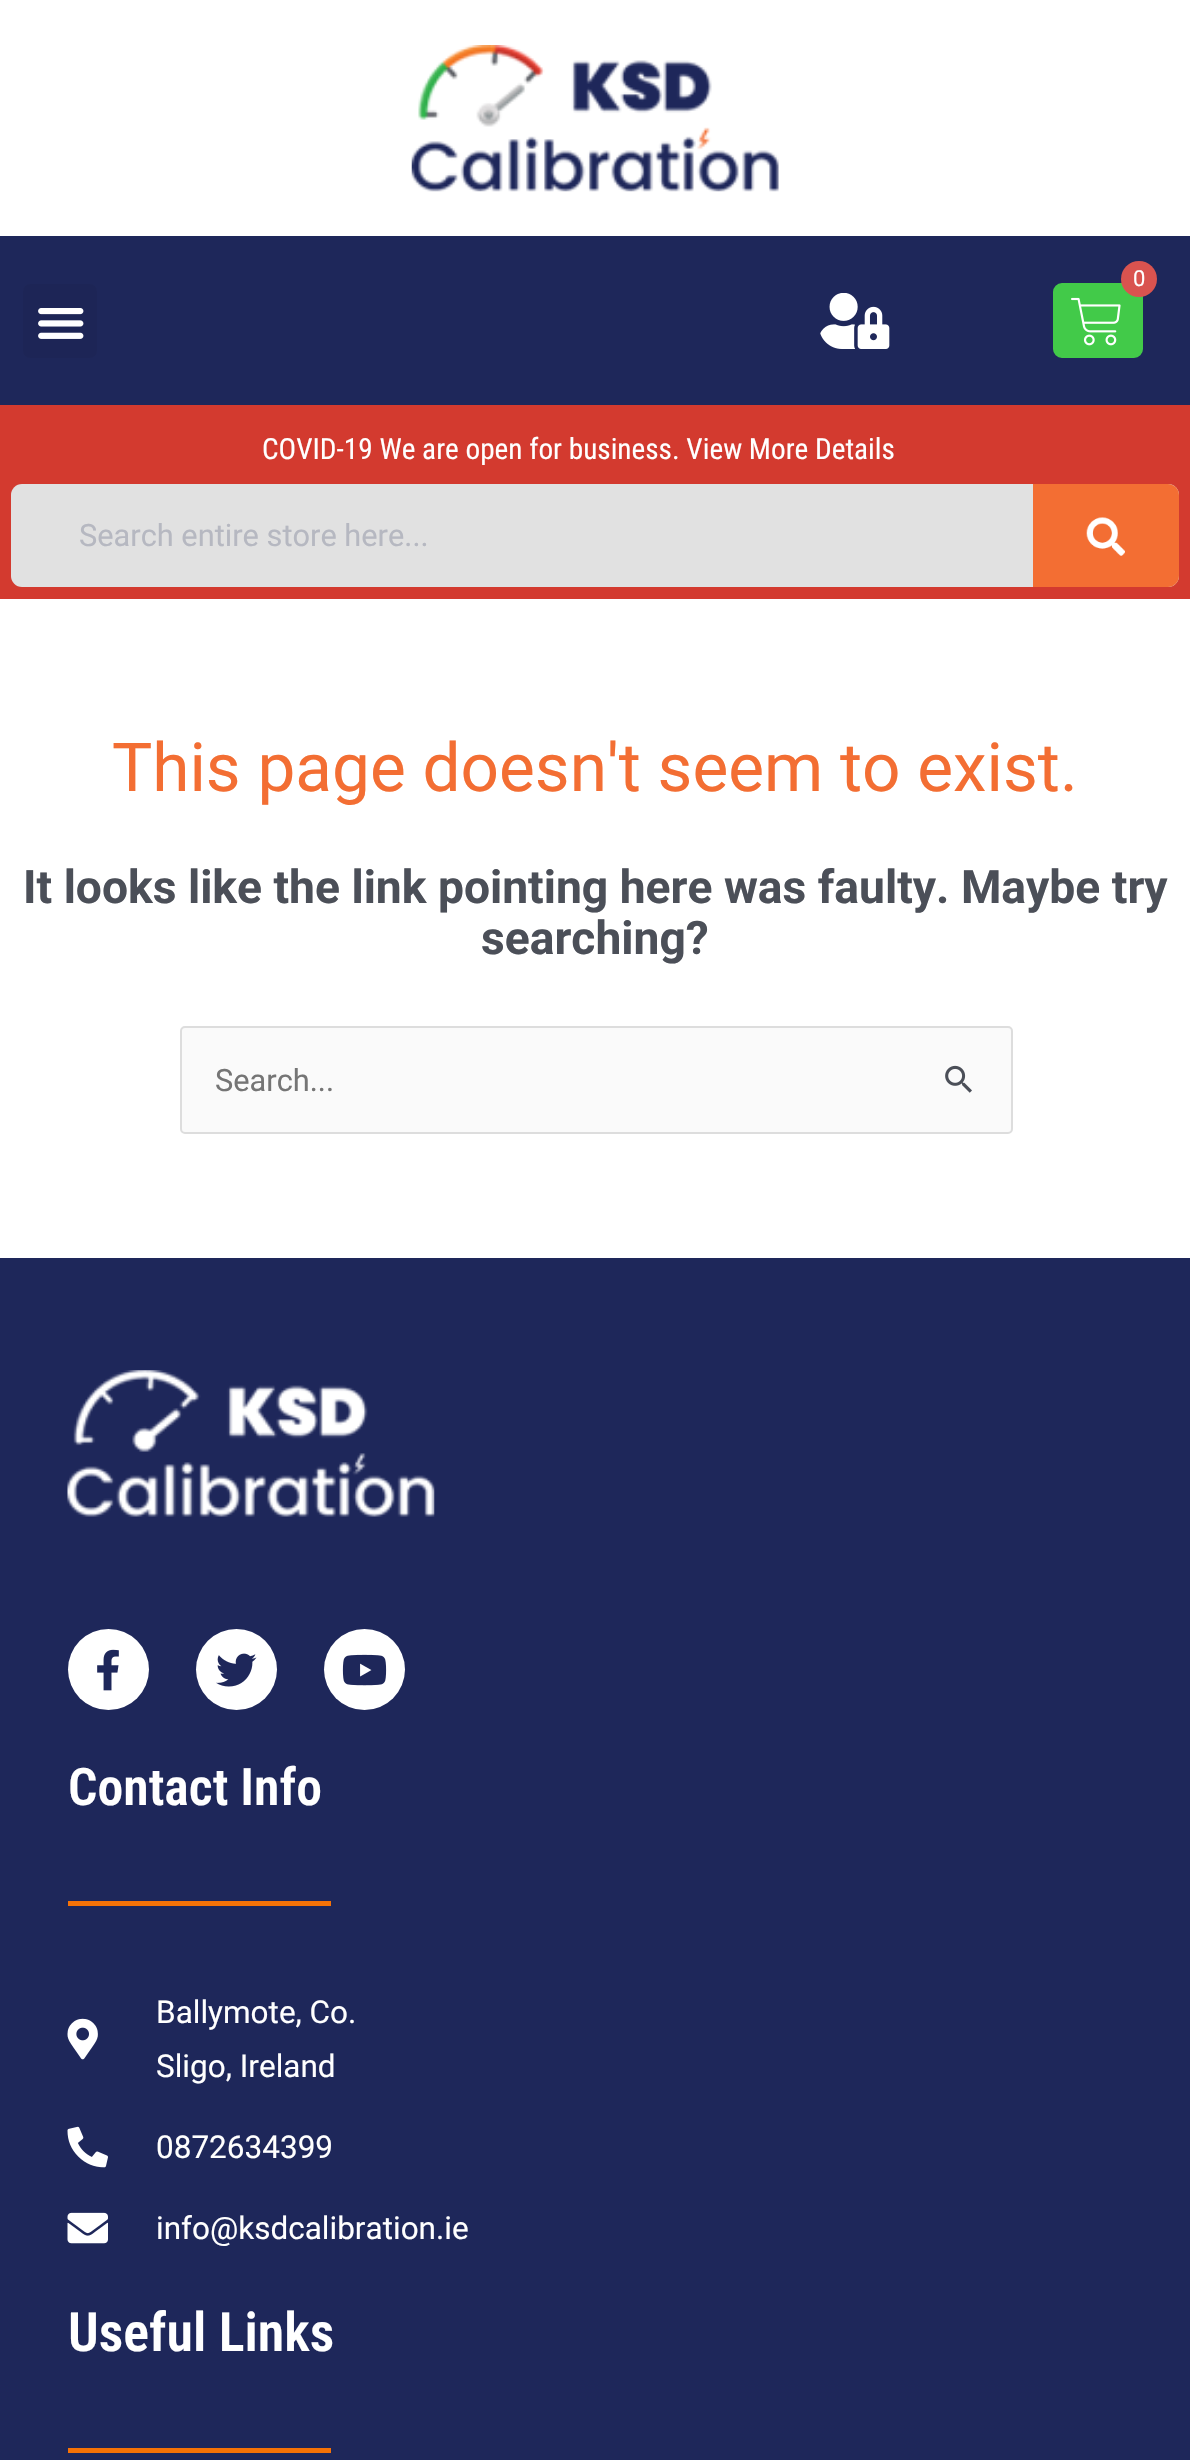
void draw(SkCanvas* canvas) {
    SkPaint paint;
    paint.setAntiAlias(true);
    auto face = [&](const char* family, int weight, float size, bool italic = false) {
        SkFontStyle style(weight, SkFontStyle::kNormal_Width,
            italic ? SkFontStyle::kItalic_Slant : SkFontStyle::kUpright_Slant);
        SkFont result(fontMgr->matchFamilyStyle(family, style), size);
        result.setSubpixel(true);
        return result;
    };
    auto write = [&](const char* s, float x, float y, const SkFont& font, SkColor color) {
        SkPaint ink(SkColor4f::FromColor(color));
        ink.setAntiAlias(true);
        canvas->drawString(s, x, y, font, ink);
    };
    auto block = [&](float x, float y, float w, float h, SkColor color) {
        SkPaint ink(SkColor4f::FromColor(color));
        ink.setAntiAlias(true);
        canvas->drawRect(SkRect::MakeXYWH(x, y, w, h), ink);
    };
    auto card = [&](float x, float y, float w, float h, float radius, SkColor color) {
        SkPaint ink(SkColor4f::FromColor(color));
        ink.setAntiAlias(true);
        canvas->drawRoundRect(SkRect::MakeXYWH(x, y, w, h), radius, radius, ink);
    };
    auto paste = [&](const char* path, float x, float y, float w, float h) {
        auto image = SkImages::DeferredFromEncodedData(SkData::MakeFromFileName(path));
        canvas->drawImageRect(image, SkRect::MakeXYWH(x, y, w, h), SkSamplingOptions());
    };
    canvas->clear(SK_ColorWHITE);
    paste("pic1.png", 411, 45, 368, 147);
    block(0, 236, 1190, 169, SkColorSetRGB(30, 39, 90));
    paint.setColor(SkColorSetRGB(66, 202, 73));
    canvas->drawRoundRect(SkRect::MakeXYWH(1052, 282, 92, 77), 10, 10, paint);
    paint.setStyle(SkPaint::kStroke_Style);
    paint.setStrokeWidth(2);
    paint.setColor(SkColorSetRGB(30, 39, 90));
    canvas->drawRoundRect(SkRect::MakeXYWH(1052, 282, 92, 77), 10, 10, paint);
    paint.setStyle(SkPaint::kFill_Style);
    paint.setColor(SkColorSetRGB(217, 83, 79));
    canvas->drawCircle(1139, 279, 18, paint);
    auto kFont1 = face("Roboto", 400, 22);
    write("0", 1133, 286, kFont1, SK_ColorWHITE);
    paste("pic2.png", 1071, 297, 50, 49);
    paste("pic3.png", 820, 293, 70, 56);
    card(23, 284, 74, 74, 7, SkColorSetRGB(29, 37, 86));
    paste("pic4.png", 38, 308, 46, 31);
    block(0, 405, 1190, 194, SkColorSetRGB(211, 58, 47));
    auto kFont2 = face("Roboto Condensed", 400, 29.25f);
    write("COVID-19 We are open for business. View More Details", 262, 459, kFont2, SK_ColorWHITE);
    card(11, 484, 1168, 103, 11, SkColorSetRGB(225, 225, 225));
    auto kFont3 = face("Roboto", 400, 30.75f);
    write("Search entire store here...", 79, 546, kFont3, SkColorSetRGB(182, 184, 193));
    paint.setColor(SkColorSetRGB(243, 110, 51));
    canvas->drawPath(SkPathBuilder().moveTo(1033, 484).lineTo(1168, 484).cubicTo(1174, 484, 1179, 489, 1179, 495).lineTo(1179, 576).cubicTo(1179, 582, 1174, 587, 1168, 587).lineTo(1033, 587).close().detach(), paint);
    paste("pic5.png", 1086, 517, 39, 39);
    auto kFont4 = face("Roboto", 400, 67.5f);
    write("This page doesn't seem to exist.", 112, 791, kFont4, SkColorSetRGB(243, 110, 51));
    auto kFont5 = face("Roboto", 700, 46.2f);
    write("It looks like the link pointing here was faulty. Maybe try", 23, 903, kFont5, SkColorSetRGB(75, 79, 88));
    write("searching?", 481, 954, kFont5, SkColorSetRGB(75, 79, 88));
    paint.setColor(SkColorSetRGB(250, 250, 250));
    canvas->drawRoundRect(SkRect::MakeXYWH(181, 1027, 831, 106), 4, 4, paint);
    paint.setStyle(SkPaint::kStroke_Style);
    paint.setColor(SkColorSetRGB(221, 221, 221));
    canvas->drawRoundRect(SkRect::MakeXYWH(181, 1027, 831, 106), 4, 4, paint);
    write("Search...", 215, 1091, kFont3, SkColorSetRGB(117, 117, 117));
    paste("pic6.png", 945, 1065, 27, 28);
    block(0, 1258, 1190, 1202, SkColorSetRGB(30, 39, 90));
    paste("pic7.png", 67, 1370, 368, 147);
    paint.setStyle(SkPaint::kFill_Style);
    paint.setColor(SK_ColorWHITE);
    canvas->drawCircle(108.5f, 1669.5f, 40.5f, paint);
    paste("pic8.png", 97, 1649, 22, 42);
    canvas->drawCircle(236.5f, 1669.5f, 40.5f, paint);
    paste("pic9.png", 216, 1653, 41, 34);
    canvas->drawCircle(364.5f, 1669.5f, 40.5f, paint);
    paste("pic10.png", 342, 1654, 45, 32);
    auto kFont6 = face("Roboto Condensed", 600, 51.75f);
    write("Contact Info", 68, 1805, kFont6, SK_ColorWHITE);
    block(68, 1901, 263, 5, SkColorSetRGB(246, 114, 6));
    paste("pic11.png", 67, 2018, 31, 42);
    auto kFont7 = face("Roboto", 400, 31.5f);
    write("Ballymote, Co.", 156, 2023, kFont7, SK_ColorWHITE);
    write("Sligo, Ireland", 156, 2077, kFont7, SK_ColorWHITE);
    paste("pic12.png", 67, 2126, 41, 42);
    write("0872634399", 156, 2158, kFont7, SK_ColorWHITE);
    paste("pic13.png", 67, 2212, 41, 32);
    write("info@ksdcalibration.ie", 156, 2239, kFont7, SK_ColorWHITE);
    auto kFont8 = face("Roboto Condensed", 600, 54);
    write("Useful Links", 68, 2351, kFont8, SK_ColorWHITE);
    block(68, 2448, 263, 5, SkColorSetRGB(246, 114, 6));
}
